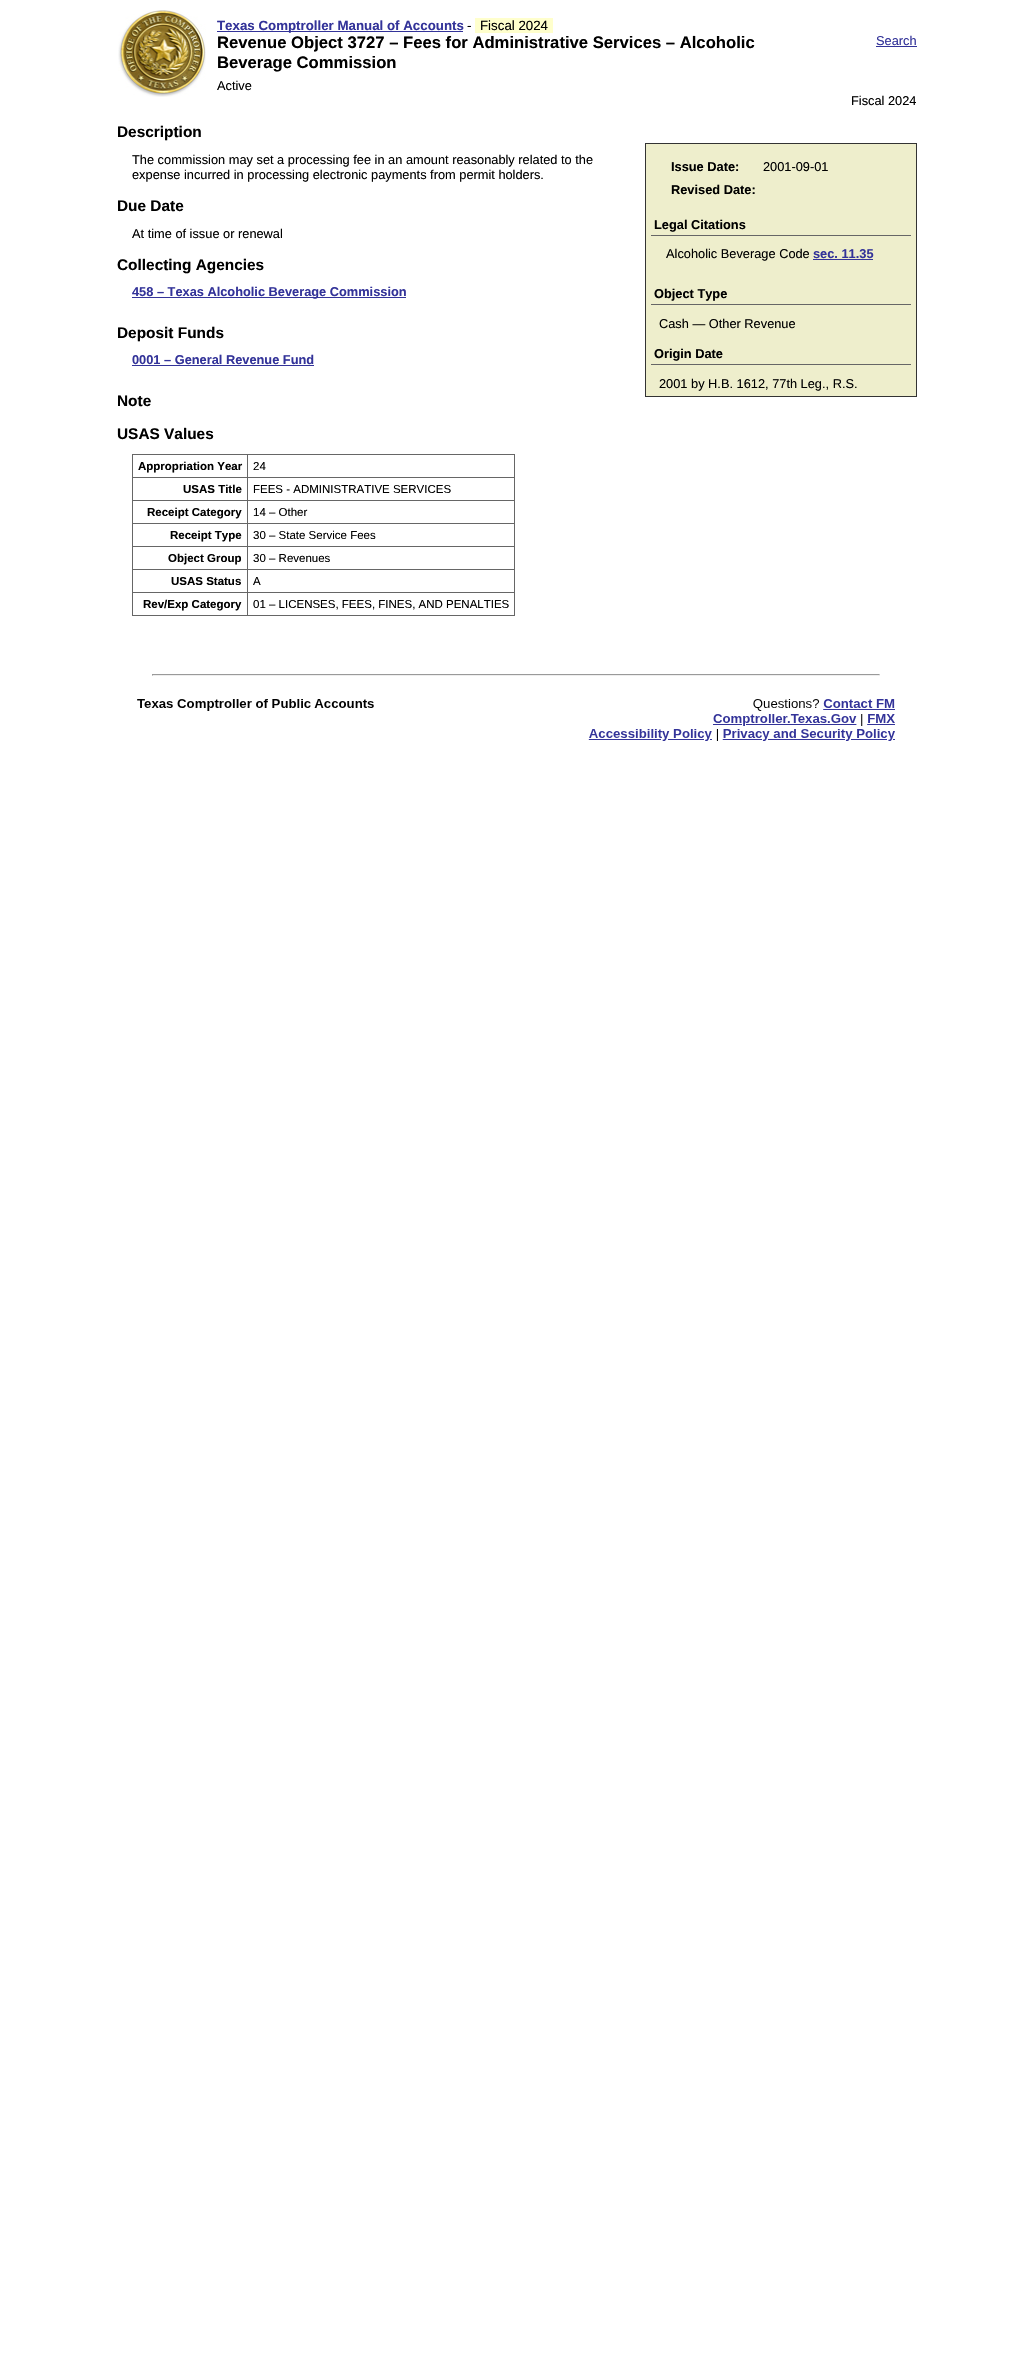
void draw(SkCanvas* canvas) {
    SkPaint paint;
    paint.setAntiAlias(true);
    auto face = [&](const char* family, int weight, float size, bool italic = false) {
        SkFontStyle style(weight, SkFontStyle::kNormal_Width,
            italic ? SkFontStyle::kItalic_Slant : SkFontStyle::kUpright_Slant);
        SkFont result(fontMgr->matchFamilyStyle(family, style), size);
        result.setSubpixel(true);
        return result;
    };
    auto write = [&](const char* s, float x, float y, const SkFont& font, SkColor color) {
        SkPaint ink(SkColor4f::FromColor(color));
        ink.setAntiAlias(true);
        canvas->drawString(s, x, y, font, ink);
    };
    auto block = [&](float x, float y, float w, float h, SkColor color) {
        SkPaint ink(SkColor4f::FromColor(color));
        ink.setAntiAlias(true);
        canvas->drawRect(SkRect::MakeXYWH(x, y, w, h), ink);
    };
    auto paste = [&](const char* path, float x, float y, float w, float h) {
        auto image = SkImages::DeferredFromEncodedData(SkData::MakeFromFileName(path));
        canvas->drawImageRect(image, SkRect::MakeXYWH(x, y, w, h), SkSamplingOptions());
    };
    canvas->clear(SK_ColorWHITE);
    paste("pic1.png", 118, 10, 88, 87);
    block(217, 31, 246, 1, SkColorSetRGB(51, 51, 153));
    auto kFont1 = face("Liberation Sans", 700, 13.3f);
    write("Texas Comptroller Manual of Accounts", 217, 30, kFont1, SkColorSetRGB(51, 51, 153));
    auto kFont2 = face("Liberation Sans", 400, 13.3f);
    write("-", 467, 30, kFont2, SK_ColorBLACK);
    block(475, 18, 78, 15, SkColorSetRGB(255, 255, 204));
    write("Fiscal 2024", 480, 30, kFont2, SK_ColorBLACK);
    auto kFont3 = face("Liberation Sans", 700, 16.65f);
    write("Revenue Object 3727 – Fees for Administrative Services – Alcoholic", 217, 48, kFont3, SK_ColorBLACK);
    write("Beverage Commission", 217, 68, kFont3, SK_ColorBLACK);
    auto kFont4 = face("Liberation Sans", 400, 12.8f);
    write("Search", 876, 45, kFont4, SkColorSetRGB(51, 51, 153));
    block(876, 46, 41, 1, SkColorSetRGB(51, 51, 153));
    write("Active", 217, 90, kFont4, SK_ColorBLACK);
    write("Fiscal 2024", 851, 105, kFont4, SK_ColorBLACK);
    auto kFont5 = face("Liberation Sans", 700, 15.4f);
    write("Description", 117, 137, kFont5, SK_ColorBLACK);
    write("The commission may set a processing fee in an amount reasonably related to the", 132, 164, kFont4, SK_ColorBLACK);
    write("expense incurred in processing electronic payments from permit holders.", 132, 179, kFont4, SK_ColorBLACK);
    write("Due Date", 117, 211, kFont5, SK_ColorBLACK);
    write("At time of issue or renewal", 132, 238, kFont4, SK_ColorBLACK);
    paint.setColor(SkColorSetRGB(238, 238, 204));
    canvas->drawRect(SkRect::MakeXYWH(645.5f, 143.5f, 271, 253), paint);
    paint.setStyle(SkPaint::kStroke_Style);
    paint.setStrokeWidth(1);
    paint.setColor(SkColorSetRGB(51, 51, 51));
    canvas->drawRect(SkRect::MakeXYWH(645.5f, 143.5f, 271, 253), paint);
    auto kFont6 = face("Liberation Sans", 700, 12.8f);
    write("Issue Date:", 671, 171, kFont6, SK_ColorBLACK);
    write("2001-09-01", 763, 171, kFont4, SK_ColorBLACK);
    write("Revised Date:", 671, 194, kFont6, SK_ColorBLACK);
    block(651, 235, 260, 1, SkColorSetRGB(102, 102, 102));
    write("Legal Citations", 654, 229, kFont6, SK_ColorBLACK);
    write("Alcoholic Beverage Code", 666, 258, kFont4, SK_ColorBLACK);
    write("sec. 11.35", 813, 258, kFont6, SkColorSetRGB(51, 51, 153));
    block(813, 259, 60, 1, SkColorSetRGB(51, 51, 153));
    block(651, 304, 260, 1, SkColorSetRGB(102, 102, 102));
    write("Object Type", 654, 298, kFont6, SK_ColorBLACK);
    write("Cash — Other Revenue", 659, 328, kFont4, SK_ColorBLACK);
    block(651, 364, 260, 1, SkColorSetRGB(102, 102, 102));
    write("Origin Date", 654, 358, kFont6, SK_ColorBLACK);
    write("2001 by H.B. 1612, 77th Leg., R.S.", 659, 388, kFont4, SK_ColorBLACK);
    write("Collecting Agencies", 117, 270, kFont5, SK_ColorBLACK);
    block(132, 297, 274, 1, SkColorSetRGB(51, 51, 153));
    write("458 – Texas Alcoholic Beverage Commission", 132, 296, kFont6, SkColorSetRGB(51, 51, 153));
    write("Deposit Funds", 117, 338, kFont5, SK_ColorBLACK);
    write("0001 – General Revenue Fund", 132, 364, kFont6, SkColorSetRGB(51, 51, 153));
    block(132, 365, 182, 1, SkColorSetRGB(51, 51, 153));
    write("Note", 117, 406, kFont5, SK_ColorBLACK);
    write("USAS Values", 117, 439, kFont5, SK_ColorBLACK);
    block(132, 454, 383, 1, SkColorSetRGB(102, 102, 102));
    block(132, 454, 1, 162, SkColorSetRGB(102, 102, 102));
    block(514, 454, 1, 162, SkColorSetRGB(102, 102, 102));
    block(247, 615, 268, 1, SkColorSetRGB(102, 102, 102));
    block(247, 592, 1, 24, SkColorSetRGB(102, 102, 102));
    block(247, 592, 268, 1, SkColorSetRGB(102, 102, 102));
    block(247, 569, 1, 24, SkColorSetRGB(102, 102, 102));
    block(247, 569, 268, 1, SkColorSetRGB(102, 102, 102));
    block(247, 546, 1, 24, SkColorSetRGB(102, 102, 102));
    block(247, 546, 268, 1, SkColorSetRGB(102, 102, 102));
    block(247, 523, 1, 24, SkColorSetRGB(102, 102, 102));
    block(247, 523, 268, 1, SkColorSetRGB(102, 102, 102));
    block(247, 500, 1, 24, SkColorSetRGB(102, 102, 102));
    block(247, 500, 268, 1, SkColorSetRGB(102, 102, 102));
    block(247, 477, 1, 24, SkColorSetRGB(102, 102, 102));
    block(247, 477, 268, 1, SkColorSetRGB(102, 102, 102));
    block(247, 454, 1, 24, SkColorSetRGB(102, 102, 102));
    block(132, 477, 116, 1, SkColorSetRGB(102, 102, 102));
    auto kFont7 = face("Liberation Sans", 700, 11.5f);
    write("Appropriation Year", 138, 470, kFont7, SK_ColorBLACK);
    auto kFont8 = face("Liberation Sans", 400, 11.5f);
    write("24", 253, 470, kFont8, SK_ColorBLACK);
    block(132, 500, 116, 1, SkColorSetRGB(102, 102, 102));
    write("USAS Title", 183, 493, kFont7, SK_ColorBLACK);
    write("FEES - ADMINISTRATIVE SERVICES", 253, 493, kFont8, SK_ColorBLACK);
    block(132, 523, 116, 1, SkColorSetRGB(102, 102, 102));
    write("Receipt Category", 147, 516, kFont7, SK_ColorBLACK);
    write("14 – Other", 253, 516, kFont8, SK_ColorBLACK);
    block(132, 546, 116, 1, SkColorSetRGB(102, 102, 102));
    write("Receipt Type", 170, 539, kFont7, SK_ColorBLACK);
    write("30 – State Service Fees", 253, 539, kFont8, SK_ColorBLACK);
    block(132, 569, 116, 1, SkColorSetRGB(102, 102, 102));
    write("Object Group", 168, 562, kFont7, SK_ColorBLACK);
    write("30 – Revenues", 253, 562, kFont8, SK_ColorBLACK);
    block(132, 592, 116, 1, SkColorSetRGB(102, 102, 102));
    write("USAS Status", 171, 585, kFont7, SK_ColorBLACK);
    write("A", 253, 585, kFont8, SK_ColorBLACK);
    block(132, 615, 116, 1, SkColorSetRGB(102, 102, 102));
    write("Rev/Exp Category", 143, 608, kFont7, SK_ColorBLACK);
    write("01 – LICENSES, FEES, FINES, AND PENALTIES", 253, 608, kFont8, SK_ColorBLACK);
    paste("pic2.png", 137, 674, 758, 67);
}
